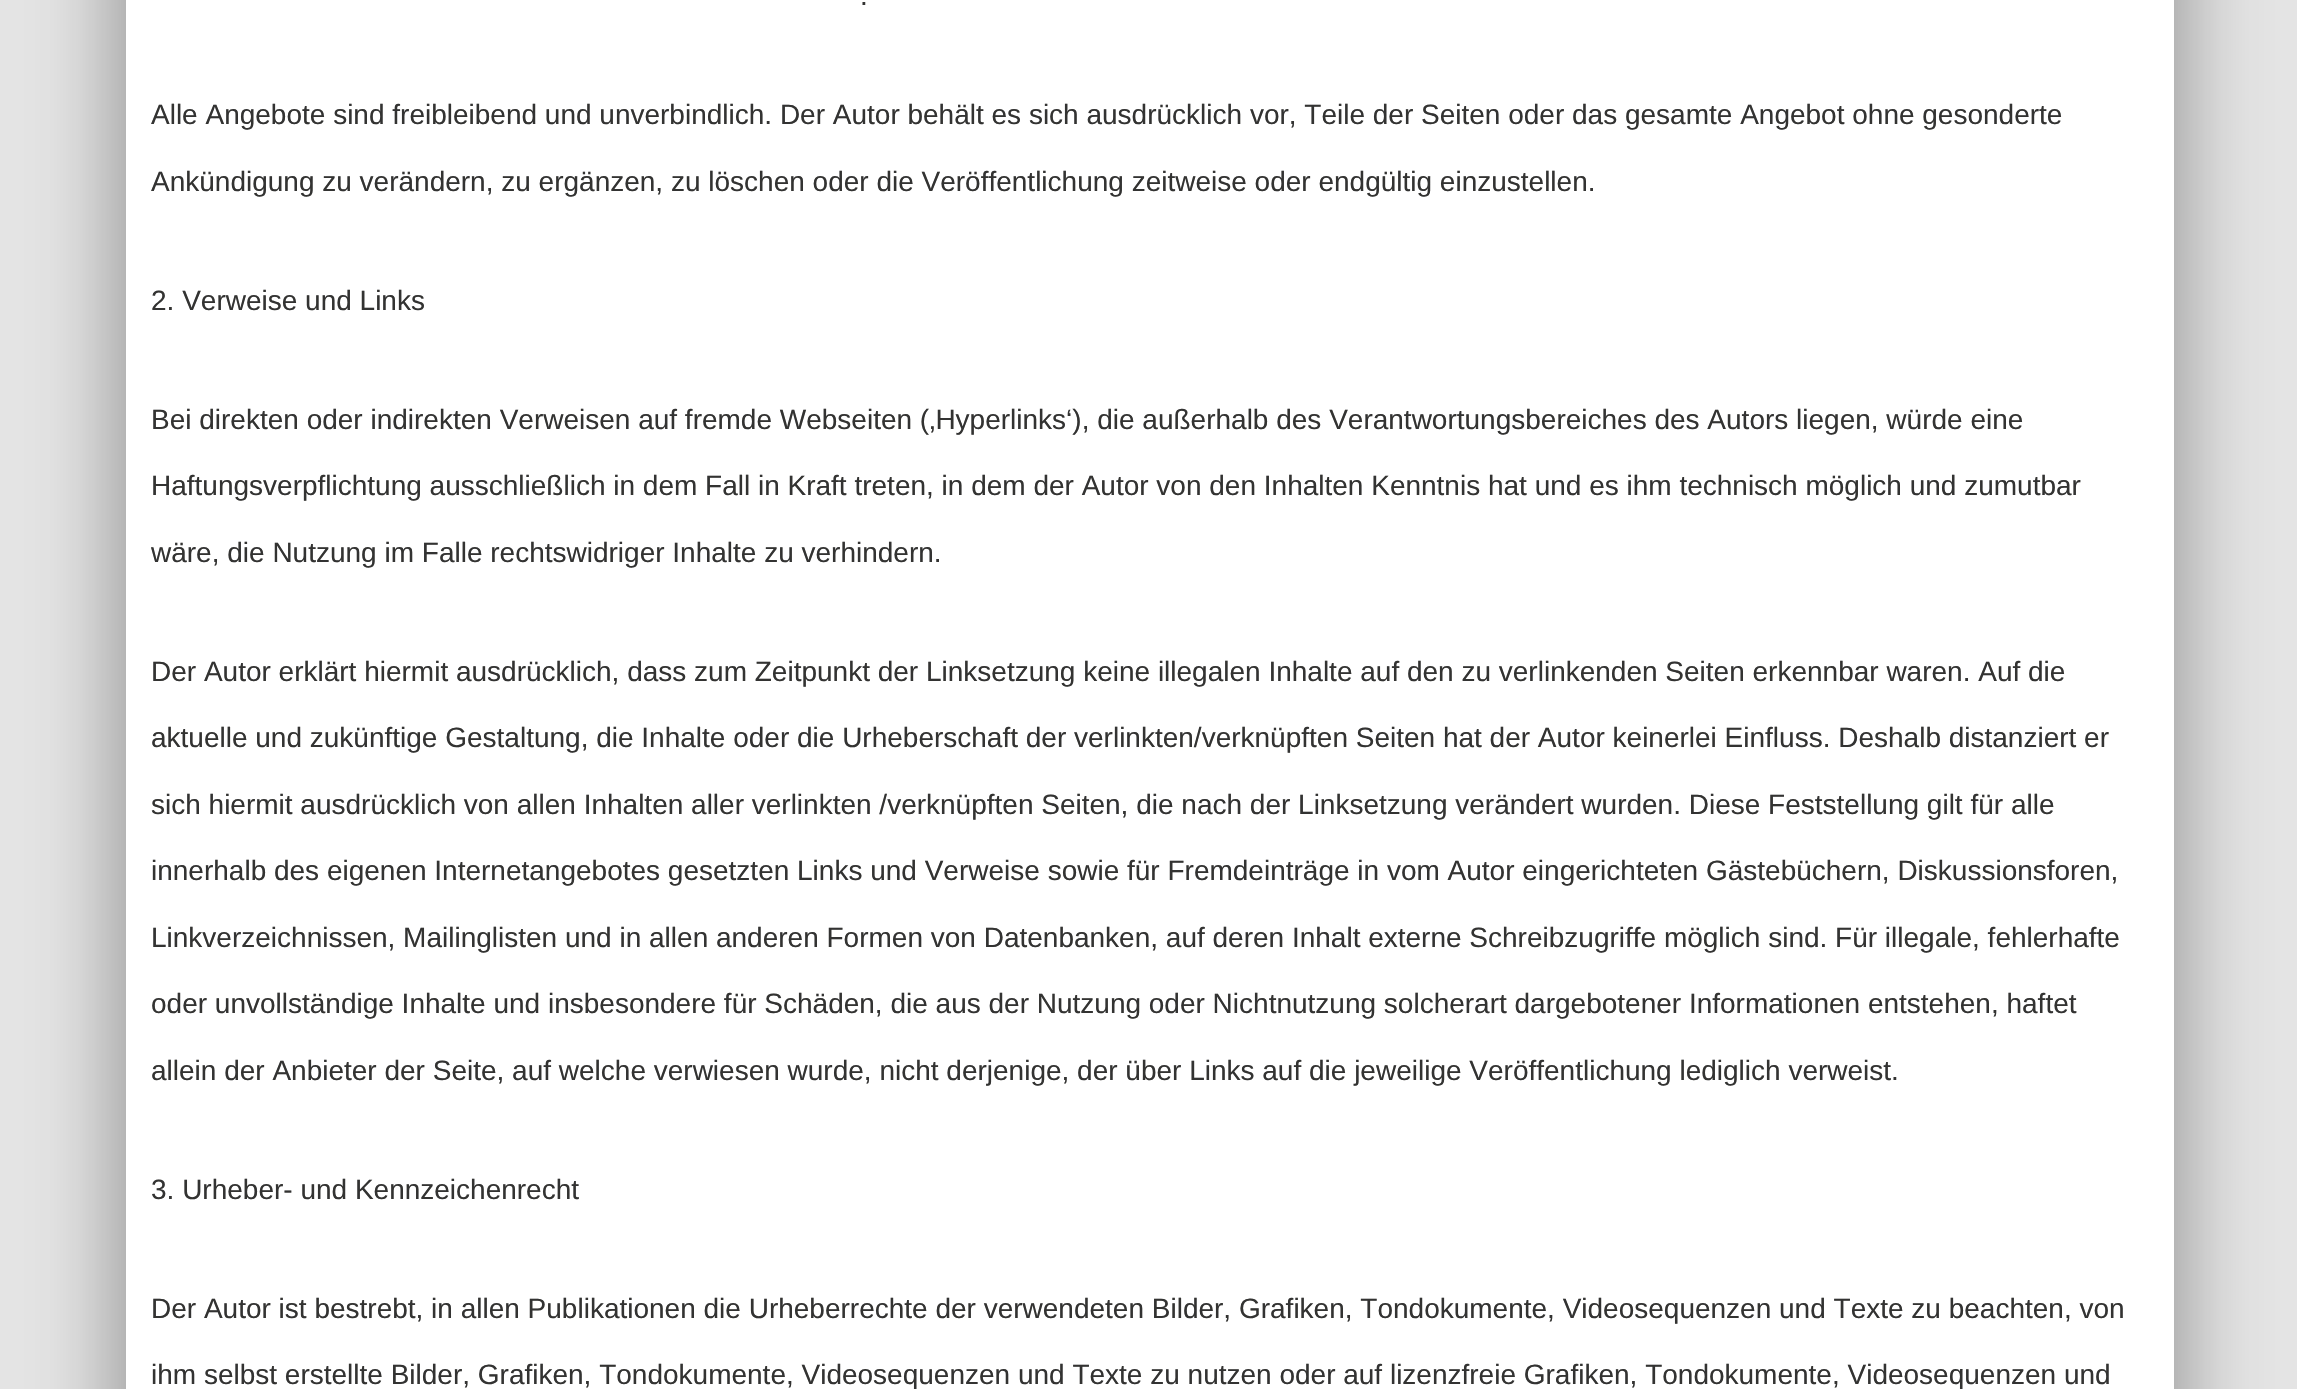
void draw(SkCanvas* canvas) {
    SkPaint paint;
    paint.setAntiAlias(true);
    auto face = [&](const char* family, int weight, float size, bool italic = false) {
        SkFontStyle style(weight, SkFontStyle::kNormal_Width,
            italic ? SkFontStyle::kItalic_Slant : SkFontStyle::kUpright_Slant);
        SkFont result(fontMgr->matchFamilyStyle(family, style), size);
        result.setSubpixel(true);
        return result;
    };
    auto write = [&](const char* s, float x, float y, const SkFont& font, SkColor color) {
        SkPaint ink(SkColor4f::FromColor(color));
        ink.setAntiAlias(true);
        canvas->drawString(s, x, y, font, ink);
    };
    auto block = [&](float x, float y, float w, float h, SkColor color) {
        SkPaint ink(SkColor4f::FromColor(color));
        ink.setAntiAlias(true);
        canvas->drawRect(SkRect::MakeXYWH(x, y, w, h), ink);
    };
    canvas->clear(SkColorSetRGB(229, 229, 229));
    paint.setColor(SkColorSetARGB(102, 0, 0, 0));
    paint.setMaskFilter(SkMaskFilter::MakeBlur(kNormal_SkBlurStyle, 44));
    canvas->drawRect(SkRect::MakeXYWH(124, -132, 2051, 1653), paint);
    paint.setMaskFilter(nullptr);
    block(126, 0, 2048, 1389, SK_ColorWHITE);
    auto kFont1 = face("Liberation Sans", 400, 28);
    write(".", 860, 5, kFont1, SkColorSetRGB(51, 51, 50));
    write("Alle Angebote sind freibleibend und unverbindlich. Der Autor behält es sich ausdrücklich vor, Teile der Seiten oder das gesamte Angebot ohne gesonderte", 151, 124, kFont1, SkColorSetRGB(51, 51, 50));
    write("Ankündigung zu verändern, zu ergänzen, zu löschen oder die Veröffentlichung zeitweise oder endgültig einzustellen.", 151, 191, kFont1, SkColorSetRGB(51, 51, 50));
    write("2. Verweise und Links", 151, 310, kFont1, SkColorSetRGB(51, 51, 50));
    write("Bei direkten oder indirekten Verweisen auf fremde Webseiten (‚Hyperlinks‘), die außerhalb des Verantwortungsbereiches des Autors liegen, würde eine", 151, 429, kFont1, SkColorSetRGB(51, 51, 50));
    write("Haftungsverpflichtung ausschließlich in dem Fall in Kraft treten, in dem der Autor von den Inhalten Kenntnis hat und es ihm technisch möglich und zumutbar", 151, 495, kFont1, SkColorSetRGB(51, 51, 50));
    write("wäre, die Nutzung im Falle rechtswidriger Inhalte zu verhindern.", 151, 562, kFont1, SkColorSetRGB(51, 51, 50));
    write("Der Autor erklärt hiermit ausdrücklich, dass zum Zeitpunkt der Linksetzung keine illegalen Inhalte auf den zu verlinkenden Seiten erkennbar waren. Auf die", 151, 681, kFont1, SkColorSetRGB(51, 51, 50));
    write("aktuelle und zukünftige Gestaltung, die Inhalte oder die Urheberschaft der verlinkten/verknüpften Seiten hat der Autor keinerlei Einfluss. Deshalb distanziert er", 151, 747, kFont1, SkColorSetRGB(51, 51, 50));
    write("sich hiermit ausdrücklich von allen Inhalten aller verlinkten /verknüpften Seiten, die nach der Linksetzung verändert wurden. Diese Feststellung gilt für alle", 151, 814, kFont1, SkColorSetRGB(51, 51, 50));
    write("innerhalb des eigenen Internetangebotes gesetzten Links und Verweise sowie für Fremdeinträge in vom Autor eingerichteten Gästebüchern, Diskussionsforen,", 151, 880, kFont1, SkColorSetRGB(51, 51, 50));
    write("Linkverzeichnissen, Mailinglisten und in allen anderen Formen von Datenbanken, auf deren Inhalt externe Schreibzugriffe möglich sind. Für illegale, fehlerhafte", 151, 947, kFont1, SkColorSetRGB(51, 51, 50));
    write("oder unvollständige Inhalte und insbesondere für Schäden, die aus der Nutzung oder Nichtnutzung solcherart dargebotener Informationen entstehen, haftet", 151, 1013, kFont1, SkColorSetRGB(51, 51, 50));
    write("allein der Anbieter der Seite, auf welche verwiesen wurde, nicht derjenige, der über Links auf die jeweilige Veröffentlichung lediglich verweist.", 151, 1080, kFont1, SkColorSetRGB(51, 51, 50));
    write("3. Urheber- und Kennzeichenrecht", 151, 1199, kFont1, SkColorSetRGB(51, 51, 50));
    write("Der Autor ist bestrebt, in allen Publikationen die Urheberrechte der verwendeten Bilder, Grafiken, Tondokumente, Videosequenzen und Texte zu beachten, von", 151, 1318, kFont1, SkColorSetRGB(51, 51, 50));
    write("ihm selbst erstellte Bilder, Grafiken, Tondokumente, Videosequenzen und Texte zu nutzen oder auf lizenzfreie Grafiken, Tondokumente, Videosequenzen und", 151, 1384, kFont1, SkColorSetRGB(51, 51, 50));
}
